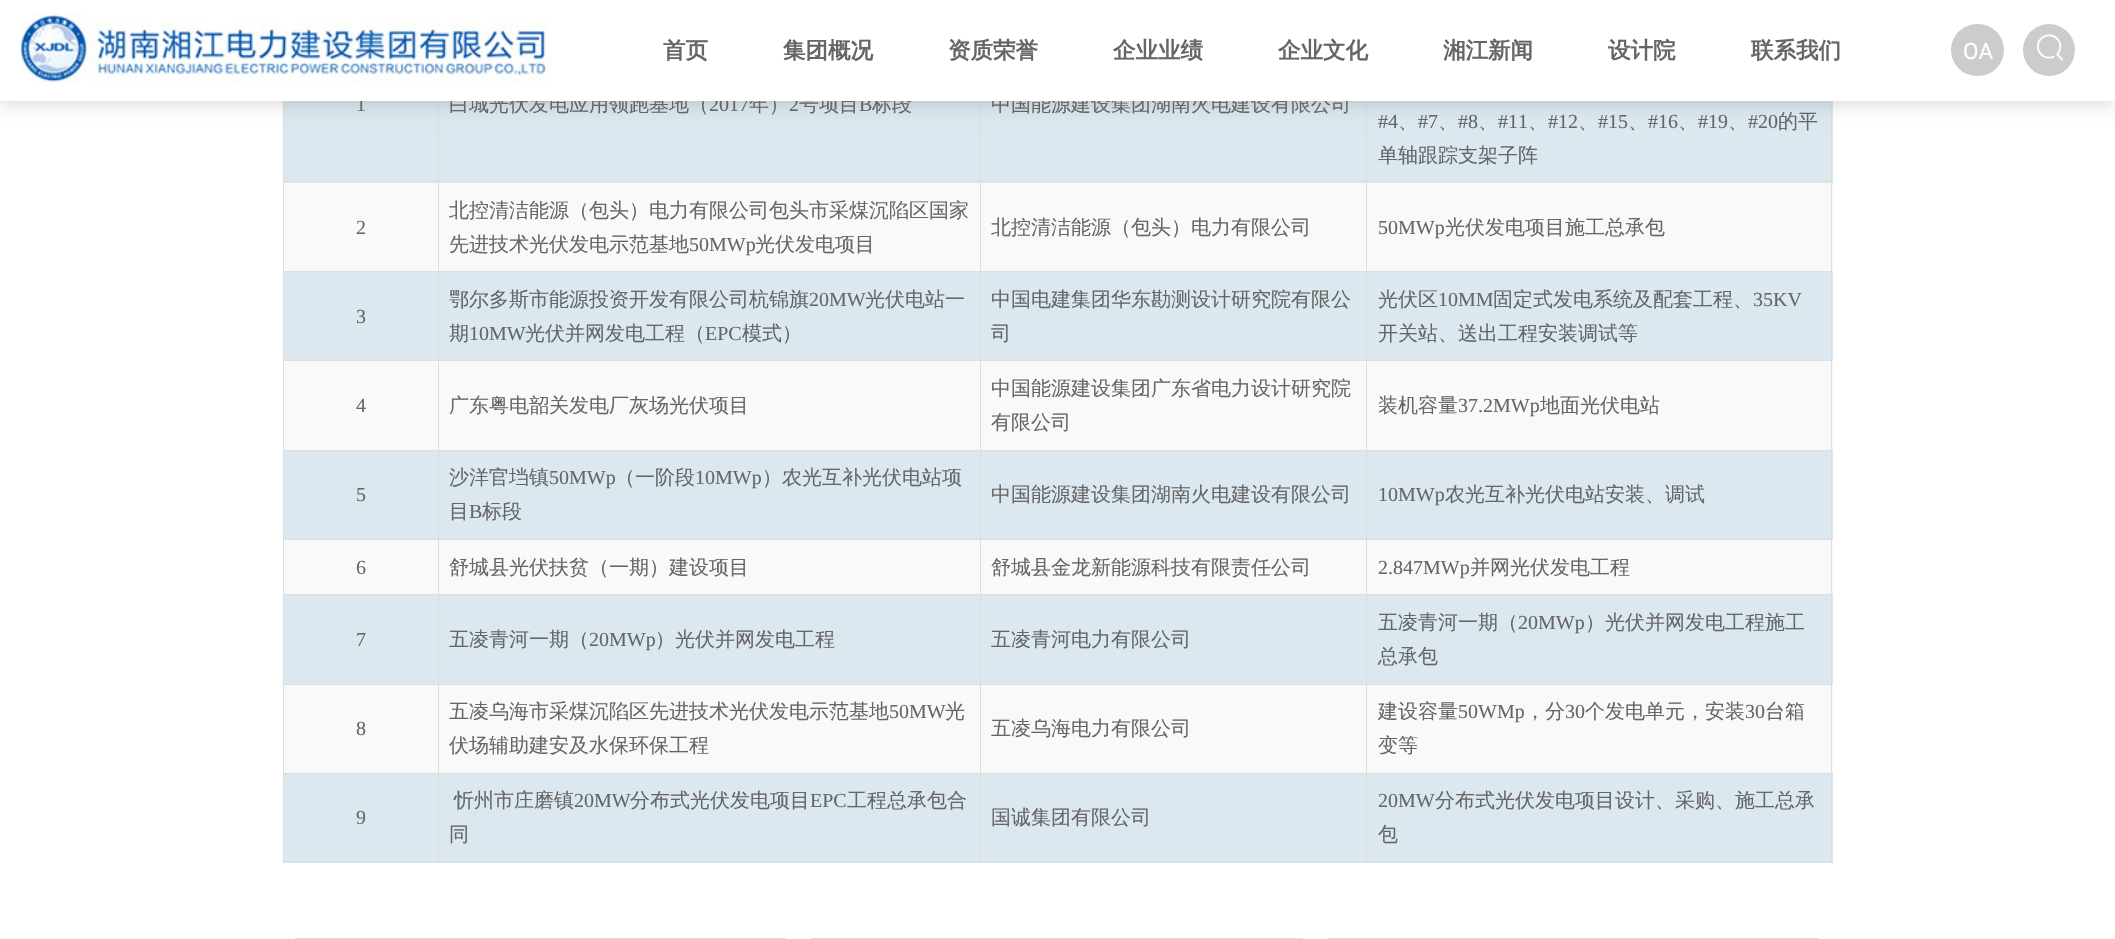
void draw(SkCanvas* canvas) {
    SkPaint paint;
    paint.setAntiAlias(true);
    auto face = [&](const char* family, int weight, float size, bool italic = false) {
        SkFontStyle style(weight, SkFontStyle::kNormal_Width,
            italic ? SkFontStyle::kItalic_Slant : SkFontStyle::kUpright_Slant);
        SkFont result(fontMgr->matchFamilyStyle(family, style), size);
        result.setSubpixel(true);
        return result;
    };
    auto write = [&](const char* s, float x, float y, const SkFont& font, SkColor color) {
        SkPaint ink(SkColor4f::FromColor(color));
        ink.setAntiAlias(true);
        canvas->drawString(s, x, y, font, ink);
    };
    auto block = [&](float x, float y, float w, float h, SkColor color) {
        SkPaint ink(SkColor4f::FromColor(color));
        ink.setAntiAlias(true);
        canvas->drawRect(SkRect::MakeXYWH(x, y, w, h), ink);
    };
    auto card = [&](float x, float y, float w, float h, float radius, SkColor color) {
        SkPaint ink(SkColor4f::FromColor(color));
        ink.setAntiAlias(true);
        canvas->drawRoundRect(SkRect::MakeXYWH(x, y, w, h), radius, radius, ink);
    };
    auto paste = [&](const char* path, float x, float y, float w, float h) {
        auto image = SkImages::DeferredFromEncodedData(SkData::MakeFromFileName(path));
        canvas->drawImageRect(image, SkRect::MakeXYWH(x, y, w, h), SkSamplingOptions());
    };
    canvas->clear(SK_ColorWHITE);
    block(284, 101, 1549, 762, SkColorSetRGB(219, 232, 239));
    block(1366, 181, 467, 1, SkColorSetRGB(221, 221, 221));
    block(284, 183, 1549, 88, SkColorSetRGB(249, 249, 249));
    block(1366, 271, 467, 1, SkColorSetRGB(221, 221, 221));
    block(1366, 360, 467, 1, SkColorSetRGB(221, 221, 221));
    block(284, 361, 1549, 89, SkColorSetRGB(249, 249, 249));
    block(1366, 450, 467, 1, SkColorSetRGB(221, 221, 221));
    block(1366, 539, 467, 1, SkColorSetRGB(221, 221, 221));
    block(284, 540, 1549, 54, SkColorSetRGB(249, 249, 249));
    block(1366, 594, 467, 1, SkColorSetRGB(221, 221, 221));
    block(1366, 684, 467, 1, SkColorSetRGB(221, 221, 221));
    block(284, 685, 1549, 88, SkColorSetRGB(249, 249, 249));
    block(1366, 773, 467, 1, SkColorSetRGB(221, 221, 221));
    block(1831, 773, 1, 90, SkColorSetRGB(221, 221, 221));
    block(1366, 861, 467, 1, SkColorSetRGB(221, 221, 221));
    block(1366, 773, 1, 90, SkColorSetRGB(221, 221, 221));
    block(980, 773, 388, 1, SkColorSetRGB(221, 221, 221));
    block(1366, 684, 1, 90, SkColorSetRGB(221, 221, 221));
    block(980, 684, 388, 1, SkColorSetRGB(221, 221, 221));
    block(1366, 594, 1, 91, SkColorSetRGB(221, 221, 221));
    block(980, 594, 388, 1, SkColorSetRGB(221, 221, 221));
    block(1366, 539, 1, 56, SkColorSetRGB(221, 221, 221));
    block(980, 539, 388, 1, SkColorSetRGB(221, 221, 221));
    block(1366, 450, 1, 90, SkColorSetRGB(221, 221, 221));
    block(980, 450, 388, 1, SkColorSetRGB(221, 221, 221));
    block(1366, 360, 1, 91, SkColorSetRGB(221, 221, 221));
    block(980, 360, 388, 1, SkColorSetRGB(221, 221, 221));
    block(1366, 271, 1, 90, SkColorSetRGB(221, 221, 221));
    block(980, 271, 388, 1, SkColorSetRGB(221, 221, 221));
    block(1366, 181, 1, 92, SkColorSetRGB(221, 221, 221));
    block(980, 181, 388, 1, SkColorSetRGB(221, 221, 221));
    block(980, 861, 388, 1, SkColorSetRGB(221, 221, 221));
    block(980, 773, 1, 90, SkColorSetRGB(221, 221, 221));
    block(438, 773, 543, 1, SkColorSetRGB(221, 221, 221));
    block(980, 684, 1, 90, SkColorSetRGB(221, 221, 221));
    block(438, 684, 543, 1, SkColorSetRGB(221, 221, 221));
    block(980, 594, 1, 91, SkColorSetRGB(221, 221, 221));
    block(438, 594, 543, 1, SkColorSetRGB(221, 221, 221));
    block(980, 539, 1, 56, SkColorSetRGB(221, 221, 221));
    block(438, 539, 543, 1, SkColorSetRGB(221, 221, 221));
    block(980, 450, 1, 90, SkColorSetRGB(221, 221, 221));
    block(438, 450, 543, 1, SkColorSetRGB(221, 221, 221));
    block(980, 360, 1, 91, SkColorSetRGB(221, 221, 221));
    block(438, 360, 543, 1, SkColorSetRGB(221, 221, 221));
    block(980, 271, 1, 90, SkColorSetRGB(221, 221, 221));
    block(438, 271, 543, 1, SkColorSetRGB(221, 221, 221));
    block(980, 181, 1, 92, SkColorSetRGB(221, 221, 221));
    block(438, 181, 543, 1, SkColorSetRGB(221, 221, 221));
    block(438, 861, 543, 1, SkColorSetRGB(221, 221, 221));
    block(438, 773, 1, 90, SkColorSetRGB(221, 221, 221));
    block(283, 773, 156, 1, SkColorSetRGB(221, 221, 221));
    block(438, 684, 1, 90, SkColorSetRGB(221, 221, 221));
    block(283, 684, 156, 1, SkColorSetRGB(221, 221, 221));
    block(438, 594, 1, 91, SkColorSetRGB(221, 221, 221));
    block(283, 594, 156, 1, SkColorSetRGB(221, 221, 221));
    block(438, 539, 1, 56, SkColorSetRGB(221, 221, 221));
    block(283, 539, 156, 1, SkColorSetRGB(221, 221, 221));
    block(438, 450, 1, 90, SkColorSetRGB(221, 221, 221));
    block(283, 450, 156, 1, SkColorSetRGB(221, 221, 221));
    block(438, 360, 1, 91, SkColorSetRGB(221, 221, 221));
    block(283, 360, 156, 1, SkColorSetRGB(221, 221, 221));
    block(438, 271, 1, 90, SkColorSetRGB(221, 221, 221));
    block(283, 271, 156, 1, SkColorSetRGB(221, 221, 221));
    block(438, 181, 1, 92, SkColorSetRGB(221, 221, 221));
    block(283, 181, 156, 1, SkColorSetRGB(221, 221, 221));
    block(438, 101, 1, 82, SkColorSetRGB(221, 221, 221));
    block(980, 101, 1, 82, SkColorSetRGB(221, 221, 221));
    block(1366, 101, 1, 82, SkColorSetRGB(221, 221, 221));
    block(283, 861, 156, 1, SkColorSetRGB(221, 221, 221));
    block(283, 773, 1, 90, SkColorSetRGB(221, 221, 221));
    block(283, 684, 1, 90, SkColorSetRGB(221, 221, 221));
    block(283, 594, 1, 91, SkColorSetRGB(221, 221, 221));
    block(283, 539, 1, 56, SkColorSetRGB(221, 221, 221));
    block(283, 450, 1, 90, SkColorSetRGB(221, 221, 221));
    block(283, 360, 1, 91, SkColorSetRGB(221, 221, 221));
    block(283, 271, 1, 90, SkColorSetRGB(221, 221, 221));
    block(283, 101, 1, 172, SkColorSetRGB(221, 221, 221));
    block(1831, 684, 1, 90, SkColorSetRGB(221, 221, 221));
    block(1831, 594, 1, 91, SkColorSetRGB(221, 221, 221));
    block(1831, 539, 1, 56, SkColorSetRGB(221, 221, 221));
    block(1831, 450, 1, 90, SkColorSetRGB(221, 221, 221));
    block(1831, 360, 1, 91, SkColorSetRGB(221, 221, 221));
    block(1831, 271, 1, 90, SkColorSetRGB(221, 221, 221));
    block(1831, 101, 1, 172, SkColorSetRGB(221, 221, 221));
    paint.setColor(SkColorSetARGB(51, 0, 0, 0));
    paint.setMaskFilter(SkMaskFilter::MakeBlur(kNormal_SkBlurStyle, 9.5f));
    canvas->drawRect(SkRect::MakeXYWH(0, 0, 2115, 101), paint);
    paint.setMaskFilter(nullptr);
    auto kFont1 = face("Liberation Serif", 400, 20);
    write("1", 356, 111, kFont1, SkColorSetRGB(102, 102, 102));
    auto kFont2 = face("WenQuanYi Zen Hei", 500, 20);
    write("白城光伏发电应用领跑基地（", 449, 111, kFont2, SkColorSetRGB(102, 102, 102));
    write("2017", 709, 111, kFont1, SkColorSetRGB(102, 102, 102));
    write("年）", 749, 111, kFont2, SkColorSetRGB(102, 102, 102));
    write("2", 789, 111, kFont1, SkColorSetRGB(102, 102, 102));
    write("号项目", 799, 111, kFont2, SkColorSetRGB(102, 102, 102));
    write("B", 859, 111, kFont1, SkColorSetRGB(102, 102, 102));
    write("标段", 872, 111, kFont2, SkColorSetRGB(102, 102, 102));
    write("中国能源建设集团湖南火电建设有限公司", 991, 111, kFont2, SkColorSetRGB(102, 102, 102));
    block(0, 0, 2115, 101, SK_ColorWHITE);
    paste("pic1.png", 21, 12, 530, 71);
    auto kFont3 = face("WenQuanYi Zen Hei", 700, 22.5f);
    write("首页", 663, 58, kFont3, SkColorSetRGB(102, 102, 102));
    write("集团概况", 783, 58, kFont3, SkColorSetRGB(102, 102, 102));
    write("资质荣誉", 948, 58, kFont3, SkColorSetRGB(102, 102, 102));
    write("企业业绩", 1113, 58, kFont3, SkColorSetRGB(102, 102, 102));
    write("企业文化", 1278, 58, kFont3, SkColorSetRGB(102, 102, 102));
    write("湘江新闻", 1443, 58, kFont3, SkColorSetRGB(102, 102, 102));
    write("设计院", 1608, 58, kFont3, SkColorSetRGB(102, 102, 102));
    write("联系我们", 1751, 58, kFont3, SkColorSetRGB(102, 102, 102));
    card(1951, 24, 53, 52, 26, SkColorSetRGB(204, 204, 204));
    auto kFont4 = face("Roboto", 400, 22.5f);
    write("OA", 1963, 59, kFont4, SK_ColorWHITE);
    paint.setColor(SkColorSetRGB(204, 204, 204));
    canvas->drawCircle(2049, 50, 26, paint);
    paste("pic2.png", 2037, 34, 26, 27);
    write("#4", 1378, 128, kFont1, SkColorSetRGB(102, 102, 102));
    write("、", 1398, 128, kFont2, SkColorSetRGB(102, 102, 102));
    write("#7", 1418, 128, kFont1, SkColorSetRGB(102, 102, 102));
    write("、", 1438, 128, kFont2, SkColorSetRGB(102, 102, 102));
    write("#8", 1458, 128, kFont1, SkColorSetRGB(102, 102, 102));
    write("、", 1478, 128, kFont2, SkColorSetRGB(102, 102, 102));
    write("#11", 1498, 128, kFont1, SkColorSetRGB(102, 102, 102));
    write("、", 1528, 128, kFont2, SkColorSetRGB(102, 102, 102));
    write("#12", 1548, 128, kFont1, SkColorSetRGB(102, 102, 102));
    write("、", 1578, 128, kFont2, SkColorSetRGB(102, 102, 102));
    write("#15", 1598, 128, kFont1, SkColorSetRGB(102, 102, 102));
    write("、", 1628, 128, kFont2, SkColorSetRGB(102, 102, 102));
    write("#16", 1648, 128, kFont1, SkColorSetRGB(102, 102, 102));
    write("、", 1678, 128, kFont2, SkColorSetRGB(102, 102, 102));
    write("#19", 1698, 128, kFont1, SkColorSetRGB(102, 102, 102));
    write("、", 1728, 128, kFont2, SkColorSetRGB(102, 102, 102));
    write("#20", 1748, 128, kFont1, SkColorSetRGB(102, 102, 102));
    write("的平", 1778, 128, kFont2, SkColorSetRGB(102, 102, 102));
    write("单轴跟踪支架子阵", 1378, 162, kFont2, SkColorSetRGB(102, 102, 102));
    write("2", 356, 234, kFont1, SkColorSetRGB(102, 102, 102));
    write("北控清洁能源（包头）电力有限公司包头市采煤沉陷区国家", 449, 217, kFont2, SkColorSetRGB(102, 102, 102));
    write("先进技术光伏发电示范基地", 449, 251, kFont2, SkColorSetRGB(102, 102, 102));
    write("50MWp", 689, 251, kFont1, SkColorSetRGB(102, 102, 102));
    write("光伏发电项目", 755, 251, kFont2, SkColorSetRGB(102, 102, 102));
    write("北控清洁能源（包头）电力有限公司", 991, 234, kFont2, SkColorSetRGB(102, 102, 102));
    write("50MWp", 1378, 234, kFont1, SkColorSetRGB(102, 102, 102));
    write("光伏发电项目施工总承包", 1445, 234, kFont2, SkColorSetRGB(102, 102, 102));
    write("3", 356, 323, kFont1, SkColorSetRGB(102, 102, 102));
    write("鄂尔多斯市能源投资开发有限公司杭锦旗", 449, 306, kFont2, SkColorSetRGB(102, 102, 102));
    write("20MW", 809, 306, kFont1, SkColorSetRGB(102, 102, 102));
    write("光伏电站一", 865, 306, kFont2, SkColorSetRGB(102, 102, 102));
    write("期", 449, 340, kFont2, SkColorSetRGB(102, 102, 102));
    write("10MW", 469, 340, kFont1, SkColorSetRGB(102, 102, 102));
    write("光伏并网发电工程（", 525, 340, kFont2, SkColorSetRGB(102, 102, 102));
    write("EPC", 705, 340, kFont1, SkColorSetRGB(102, 102, 102));
    write("模式）", 742, 340, kFont2, SkColorSetRGB(102, 102, 102));
    write("中国电建集团华东勘测设计研究院有限公", 991, 306, kFont2, SkColorSetRGB(102, 102, 102));
    write("司", 991, 340, kFont2, SkColorSetRGB(102, 102, 102));
    write("光伏区", 1378, 306, kFont2, SkColorSetRGB(102, 102, 102));
    write("10MM", 1438, 306, kFont1, SkColorSetRGB(102, 102, 102));
    write("固定式发电系统及配套工程、", 1493, 306, kFont2, SkColorSetRGB(102, 102, 102));
    write("35KV", 1753, 306, kFont1, SkColorSetRGB(102, 102, 102));
    write("开关站、送出工程安装调试等", 1378, 340, kFont2, SkColorSetRGB(102, 102, 102));
    write("4", 356, 412, kFont1, SkColorSetRGB(102, 102, 102));
    write("广东粤电韶关发电厂灰场光伏项目", 449, 412, kFont2, SkColorSetRGB(102, 102, 102));
    write("中国能源建设集团广东省电力设计研究院", 991, 395, kFont2, SkColorSetRGB(102, 102, 102));
    write("有限公司", 991, 429, kFont2, SkColorSetRGB(102, 102, 102));
    write("装机容量", 1378, 412, kFont2, SkColorSetRGB(102, 102, 102));
    write("37.2MWp", 1458, 412, kFont1, SkColorSetRGB(102, 102, 102));
    write("地面光伏电站", 1540, 412, kFont2, SkColorSetRGB(102, 102, 102));
    write("5", 356, 501, kFont1, SkColorSetRGB(102, 102, 102));
    write("沙洋官垱镇", 449, 484, kFont2, SkColorSetRGB(102, 102, 102));
    write("50MWp", 549, 484, kFont1, SkColorSetRGB(102, 102, 102));
    write("（一阶段", 615, 484, kFont2, SkColorSetRGB(102, 102, 102));
    write("10MWp", 695, 484, kFont1, SkColorSetRGB(102, 102, 102));
    write("）农光互补光伏电站项", 762, 484, kFont2, SkColorSetRGB(102, 102, 102));
    write("目", 449, 518, kFont2, SkColorSetRGB(102, 102, 102));
    write("B", 469, 518, kFont1, SkColorSetRGB(102, 102, 102));
    write("标段", 482, 518, kFont2, SkColorSetRGB(102, 102, 102));
    write("中国能源建设集团湖南火电建设有限公司", 991, 501, kFont2, SkColorSetRGB(102, 102, 102));
    write("10MWp", 1378, 501, kFont1, SkColorSetRGB(102, 102, 102));
    write("农光互补光伏电站安装、调试", 1445, 501, kFont2, SkColorSetRGB(102, 102, 102));
    write("6", 356, 574, kFont1, SkColorSetRGB(102, 102, 102));
    write("舒城县光伏扶贫（一期）建设项目", 449, 574, kFont2, SkColorSetRGB(102, 102, 102));
    write("舒城县金龙新能源科技有限责任公司", 991, 574, kFont2, SkColorSetRGB(102, 102, 102));
    write("2.847MWp", 1378, 574, kFont1, SkColorSetRGB(102, 102, 102));
    write("并网光伏发电工程", 1470, 574, kFont2, SkColorSetRGB(102, 102, 102));
    write("7", 356, 646, kFont1, SkColorSetRGB(102, 102, 102));
    write("五凌青河一期（", 449, 646, kFont2, SkColorSetRGB(102, 102, 102));
    write("20MWp", 589, 646, kFont1, SkColorSetRGB(102, 102, 102));
    write("）光伏并网发电工程", 655, 646, kFont2, SkColorSetRGB(102, 102, 102));
    write("五凌青河电力有限公司", 991, 646, kFont2, SkColorSetRGB(102, 102, 102));
    write("五凌青河一期（", 1378, 629, kFont2, SkColorSetRGB(102, 102, 102));
    write("20MWp", 1518, 629, kFont1, SkColorSetRGB(102, 102, 102));
    write("）光伏并网发电工程施工", 1585, 629, kFont2, SkColorSetRGB(102, 102, 102));
    write("总承包", 1378, 663, kFont2, SkColorSetRGB(102, 102, 102));
    write("8", 356, 735, kFont1, SkColorSetRGB(102, 102, 102));
    write("五凌乌海市采煤沉陷区先进技术光伏发电示范基地", 449, 718, kFont2, SkColorSetRGB(102, 102, 102));
    write("50MW", 889, 718, kFont1, SkColorSetRGB(102, 102, 102));
    write("光", 945, 718, kFont2, SkColorSetRGB(102, 102, 102));
    write("伏场辅助建安及水保环保工程", 449, 752, kFont2, SkColorSetRGB(102, 102, 102));
    write("五凌乌海电力有限公司", 991, 735, kFont2, SkColorSetRGB(102, 102, 102));
    write("建设容量", 1378, 718, kFont2, SkColorSetRGB(102, 102, 102));
    write("50WMp", 1458, 718, kFont1, SkColorSetRGB(102, 102, 102));
    write("，分", 1525, 718, kFont2, SkColorSetRGB(102, 102, 102));
    write("30", 1565, 718, kFont1, SkColorSetRGB(102, 102, 102));
    write("个发电单元，安装", 1585, 718, kFont2, SkColorSetRGB(102, 102, 102));
    write("30", 1745, 718, kFont1, SkColorSetRGB(102, 102, 102));
    write("台箱", 1765, 718, kFont2, SkColorSetRGB(102, 102, 102));
    write("变等", 1378, 752, kFont2, SkColorSetRGB(102, 102, 102));
    write("9", 356, 824, kFont1, SkColorSetRGB(102, 102, 102));
    write("忻州市庄磨镇", 454, 807, kFont2, SkColorSetRGB(102, 102, 102));
    write("20MW", 574, 807, kFont1, SkColorSetRGB(102, 102, 102));
    write("分布式光伏发电项目", 630, 807, kFont2, SkColorSetRGB(102, 102, 102));
    write("EPC", 810, 807, kFont1, SkColorSetRGB(102, 102, 102));
    write("工程总承包合", 847, 807, kFont2, SkColorSetRGB(102, 102, 102));
    write("同", 449, 841, kFont2, SkColorSetRGB(102, 102, 102));
    write("国诚集团有限公司", 991, 824, kFont2, SkColorSetRGB(102, 102, 102));
    write("20MW", 1378, 807, kFont1, SkColorSetRGB(102, 102, 102));
    write("分布式光伏发电项目设计、采购、施工总承", 1435, 807, kFont2, SkColorSetRGB(102, 102, 102));
    write("包", 1378, 841, kFont2, SkColorSetRGB(102, 102, 102));
    paint.setStyle(SkPaint::kStroke_Style);
    paint.setStrokeWidth(1);
    paint.setColor(SkColorSetRGB(221, 221, 221));
    canvas->drawRect(SkRect::MakeXYWH(295.5f, 938.5f, 490, 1), paint);
    canvas->drawRect(SkRect::MakeXYWH(811.5f, 938.5f, 491, 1), paint);
    canvas->drawRect(SkRect::MakeXYWH(1328.5f, 938.5f, 490, 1), paint);
}
